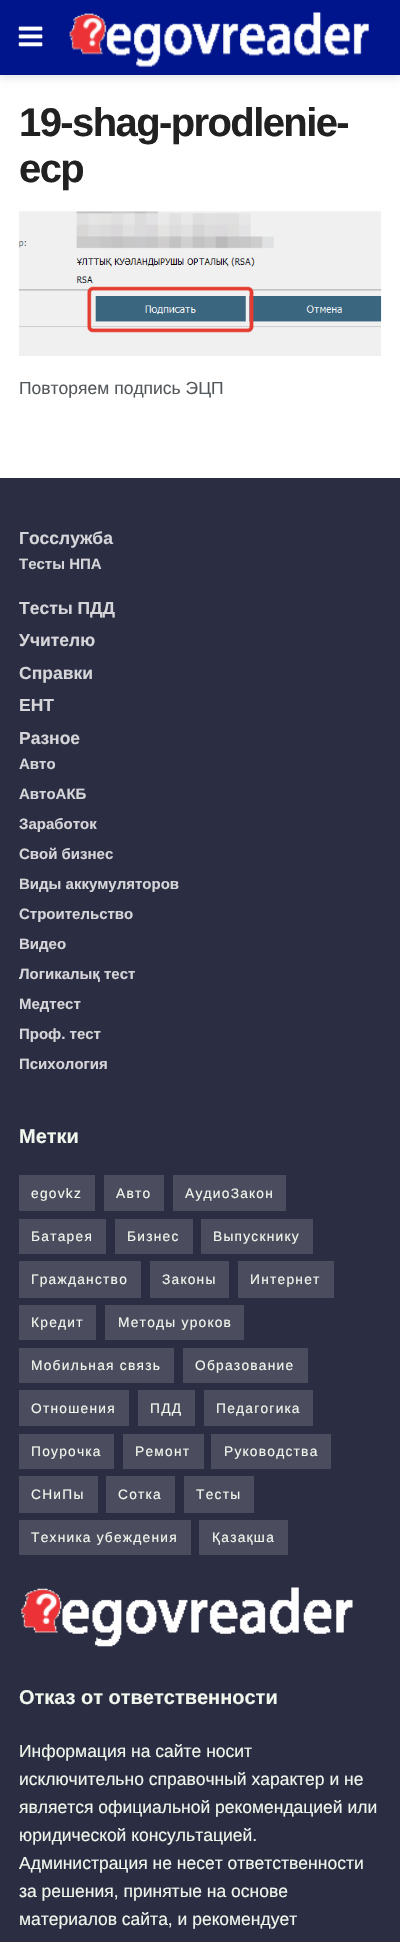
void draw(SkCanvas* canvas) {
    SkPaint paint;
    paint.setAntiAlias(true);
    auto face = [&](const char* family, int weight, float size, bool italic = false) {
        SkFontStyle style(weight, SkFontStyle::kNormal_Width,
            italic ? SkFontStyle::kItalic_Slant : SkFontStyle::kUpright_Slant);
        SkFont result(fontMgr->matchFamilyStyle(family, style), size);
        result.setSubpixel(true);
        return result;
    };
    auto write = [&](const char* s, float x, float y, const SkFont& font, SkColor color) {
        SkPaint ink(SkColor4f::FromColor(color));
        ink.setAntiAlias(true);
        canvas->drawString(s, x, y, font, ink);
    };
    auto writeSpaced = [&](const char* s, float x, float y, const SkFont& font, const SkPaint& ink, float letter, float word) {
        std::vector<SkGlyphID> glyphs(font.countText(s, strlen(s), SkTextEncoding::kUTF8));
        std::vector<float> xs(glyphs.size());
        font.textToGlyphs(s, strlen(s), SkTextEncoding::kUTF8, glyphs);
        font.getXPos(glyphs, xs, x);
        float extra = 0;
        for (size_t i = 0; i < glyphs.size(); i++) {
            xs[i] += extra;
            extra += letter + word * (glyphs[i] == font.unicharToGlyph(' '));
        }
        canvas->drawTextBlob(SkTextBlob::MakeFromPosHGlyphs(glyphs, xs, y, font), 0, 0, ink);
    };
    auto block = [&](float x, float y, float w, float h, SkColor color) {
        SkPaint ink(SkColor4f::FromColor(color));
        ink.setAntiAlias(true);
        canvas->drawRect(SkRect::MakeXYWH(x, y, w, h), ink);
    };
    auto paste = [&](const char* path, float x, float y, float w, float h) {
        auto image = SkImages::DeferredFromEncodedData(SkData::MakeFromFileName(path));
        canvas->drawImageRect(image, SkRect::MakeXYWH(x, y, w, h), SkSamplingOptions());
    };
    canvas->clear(SK_ColorWHITE);
    paint.setColor(SkColorSetARGB(26, 0, 0, 0));
    paint.setMaskFilter(SkMaskFilter::MakeBlur(kNormal_SkBlurStyle, 4));
    canvas->drawRect(SkRect::MakeXYWH(0, 3, 400, 75), paint);
    paint.setMaskFilter(nullptr);
    block(0, 0, 400, 75, SkColorSetRGB(0, 21, 140));
    paste("pic1.png", 18, 26, 25, 21);
    paste("pic2.png", 69, 12, 300, 55);
    auto kFont1 = face("Liberation Sans", 700, 40);
    paint.setColor(SkColorSetRGB(33, 33, 33));
    writeSpaced("19-shag-prodlenie-", 19, 136, kFont1, paint, -1.6f, 0);
    writeSpaced("ecp", 19, 182, kFont1, paint, -1.6f, 0);
    block(19, 211, 362, 1, SkColorSetRGB(247, 247, 247));
    paste("pic3.png", 18, 211, 364, 145);
    auto kFont2 = face("Liberation Sans", 400, 17.5f);
    write("Повторяем подпись ЭЦП", 19, 394, kFont2, SkColorSetRGB(83, 88, 92));
    block(0, 478, 400, 1464, SkColorSetRGB(43, 45, 66));
    auto kFont3 = face("Liberation Sans", 700, 17.5f);
    write("Госслужба", 19, 544, kFont3, SkColorSetRGB(213, 213, 217));
    auto kFont4 = face("Liberation Sans", 700, 15);
    write("Тесты НПА", 19, 569, kFont4, SkColorSetRGB(213, 213, 217));
    write("Тесты ПДД", 19, 614, kFont3, SkColorSetRGB(213, 213, 217));
    write("Учителю", 19, 646, kFont3, SkColorSetRGB(213, 213, 217));
    write("Справки", 19, 679, kFont3, SkColorSetRGB(213, 213, 217));
    write("ЕНТ", 19, 711, kFont3, SkColorSetRGB(213, 213, 217));
    write("Разное", 19, 744, kFont3, SkColorSetRGB(213, 213, 217));
    write("Авто", 19, 769, kFont4, SkColorSetRGB(213, 213, 217));
    write("АвтоАКБ", 19, 799, kFont4, SkColorSetRGB(213, 213, 217));
    write("Заработок", 19, 829, kFont4, SkColorSetRGB(213, 213, 217));
    write("Свой бизнес", 19, 859, kFont4, SkColorSetRGB(213, 213, 217));
    write("Виды аккумуляторов", 19, 889, kFont4, SkColorSetRGB(213, 213, 217));
    write("Строительство", 19, 919, kFont4, SkColorSetRGB(213, 213, 217));
    write("Видео", 19, 949, kFont4, SkColorSetRGB(213, 213, 217));
    write("Логикалық тест", 19, 979, kFont4, SkColorSetRGB(213, 213, 217));
    write("Медтест", 19, 1009, kFont4, SkColorSetRGB(213, 213, 217));
    write("Проф. тест", 19, 1039, kFont4, SkColorSetRGB(213, 213, 217));
    write("Психология", 19, 1069, kFont4, SkColorSetRGB(213, 213, 217));
    auto kFont5 = face("Liberation Sans", 700, 20);
    write("Метки", 19, 1143, kFont5, SkColorSetRGB(241, 247, 237));
    block(19, 1175, 76, 36, SkColorSetRGB(75, 77, 94));
    auto kFont6 = face("Liberation Sans", 400, 13.75f);
    paint.setColor(SkColorSetRGB(241, 247, 237));
    writeSpaced("egovkz", 31, 1198, kFont6, paint, 1.25f, 0);
    block(104, 1175, 60, 36, SkColorSetRGB(75, 77, 94));
    writeSpaced("Авто", 116, 1198, kFont6, paint, 1.25f, 0);
    block(173, 1175, 113, 36, SkColorSetRGB(75, 77, 94));
    writeSpaced("АудиоЗакон", 185, 1198, kFont6, paint, 1.25f, 0);
    block(19, 1219, 87, 35, SkColorSetRGB(75, 77, 94));
    writeSpaced("Батарея", 31, 1241, kFont6, paint, 1.25f, 0);
    block(115, 1219, 78, 35, SkColorSetRGB(75, 77, 94));
    writeSpaced("Бизнес", 127, 1241, kFont6, paint, 1.25f, 0);
    block(201, 1219, 112, 35, SkColorSetRGB(75, 77, 94));
    writeSpaced("Выпускнику", 213, 1241, kFont6, paint, 1.25f, 0);
    block(19, 1261, 122, 37, SkColorSetRGB(75, 77, 94));
    writeSpaced("Гражданство", 31, 1284, kFont6, paint, 1.25f, 0);
    block(150, 1261, 79, 37, SkColorSetRGB(75, 77, 94));
    writeSpaced("Законы", 162, 1284, kFont6, paint, 1.25f, 0);
    block(238, 1261, 96, 37, SkColorSetRGB(75, 77, 94));
    writeSpaced("Интернет", 250, 1284, kFont6, paint, 1.25f, 0);
    block(19, 1305, 77, 35, SkColorSetRGB(75, 77, 94));
    writeSpaced("Кредит", 31, 1327, kFont6, paint, 1.25f, 0);
    block(105, 1305, 139, 35, SkColorSetRGB(75, 77, 94));
    writeSpaced("Методы уроков", 118, 1327, kFont6, paint, 1.25f, 0);
    block(19, 1348, 155, 35, SkColorSetRGB(75, 77, 94));
    writeSpaced("Мобильная связь", 31, 1370, kFont6, paint, 1.25f, 0);
    block(183, 1348, 125, 35, SkColorSetRGB(75, 77, 94));
    writeSpaced("Образование", 195, 1370, kFont6, paint, 1.25f, 0);
    block(19, 1390, 110, 36, SkColorSetRGB(75, 77, 94));
    writeSpaced("Отношения", 31, 1413, kFont6, paint, 1.25f, 0);
    block(138, 1390, 57, 36, SkColorSetRGB(75, 77, 94));
    writeSpaced("ПДД", 150, 1413, kFont6, paint, 1.25f, 0);
    block(204, 1390, 109, 36, SkColorSetRGB(75, 77, 94));
    writeSpaced("Педагогика", 216, 1413, kFont6, paint, 1.25f, 0);
    block(19, 1434, 95, 35, SkColorSetRGB(75, 77, 94));
    writeSpaced("Поурочка", 31, 1456, kFont6, paint, 1.25f, 0);
    block(123, 1434, 81, 35, SkColorSetRGB(75, 77, 94));
    writeSpaced("Ремонт", 135, 1456, kFont6, paint, 1.25f, 0);
    block(211, 1434, 120, 35, SkColorSetRGB(75, 77, 94));
    writeSpaced("Руководства", 224, 1456, kFont6, paint, 1.25f, 0);
    block(19, 1476, 79, 37, SkColorSetRGB(75, 77, 94));
    writeSpaced("СНиПы", 31, 1499, kFont6, paint, 1.25f, 0);
    block(106, 1476, 69, 37, SkColorSetRGB(75, 77, 94));
    writeSpaced("Сотка", 118, 1499, kFont6, paint, 1.25f, 0);
    block(184, 1476, 70, 37, SkColorSetRGB(75, 77, 94));
    writeSpaced("Тесты", 196, 1499, kFont6, paint, 1.25f, 0);
    block(19, 1520, 172, 35, SkColorSetRGB(75, 77, 94));
    writeSpaced("Техника убеждения", 31, 1542, kFont6, paint, 1.25f, 0);
    block(199, 1520, 89, 35, SkColorSetRGB(75, 77, 94));
    writeSpaced("Қазақша", 212, 1542, kFont6, paint, 1.25f, 0);
    paste("pic4.png", 21, 1587, 332, 60);
    write("Отказ от ответственности", 19, 1704, kFont5, SkColorSetRGB(241, 247, 237));
    write("Информация на сайте носит", 19, 1757, kFont2, SkColorSetRGB(241, 247, 237));
    write("исключительно справочный характер и не", 19, 1785, kFont2, SkColorSetRGB(241, 247, 237));
    write("является официальной рекомендацией или", 19, 1813, kFont2, SkColorSetRGB(241, 247, 237));
    write("юридической консультацией.", 19, 1841, kFont2, SkColorSetRGB(241, 247, 237));
    write("Администрация не несет ответственности", 19, 1869, kFont2, SkColorSetRGB(241, 247, 237));
    write("за решения, принятые на основе", 19, 1897, kFont2, SkColorSetRGB(241, 247, 237));
    write("материалов сайта, и рекомендует", 19, 1925, kFont2, SkColorSetRGB(241, 247, 237));
}
